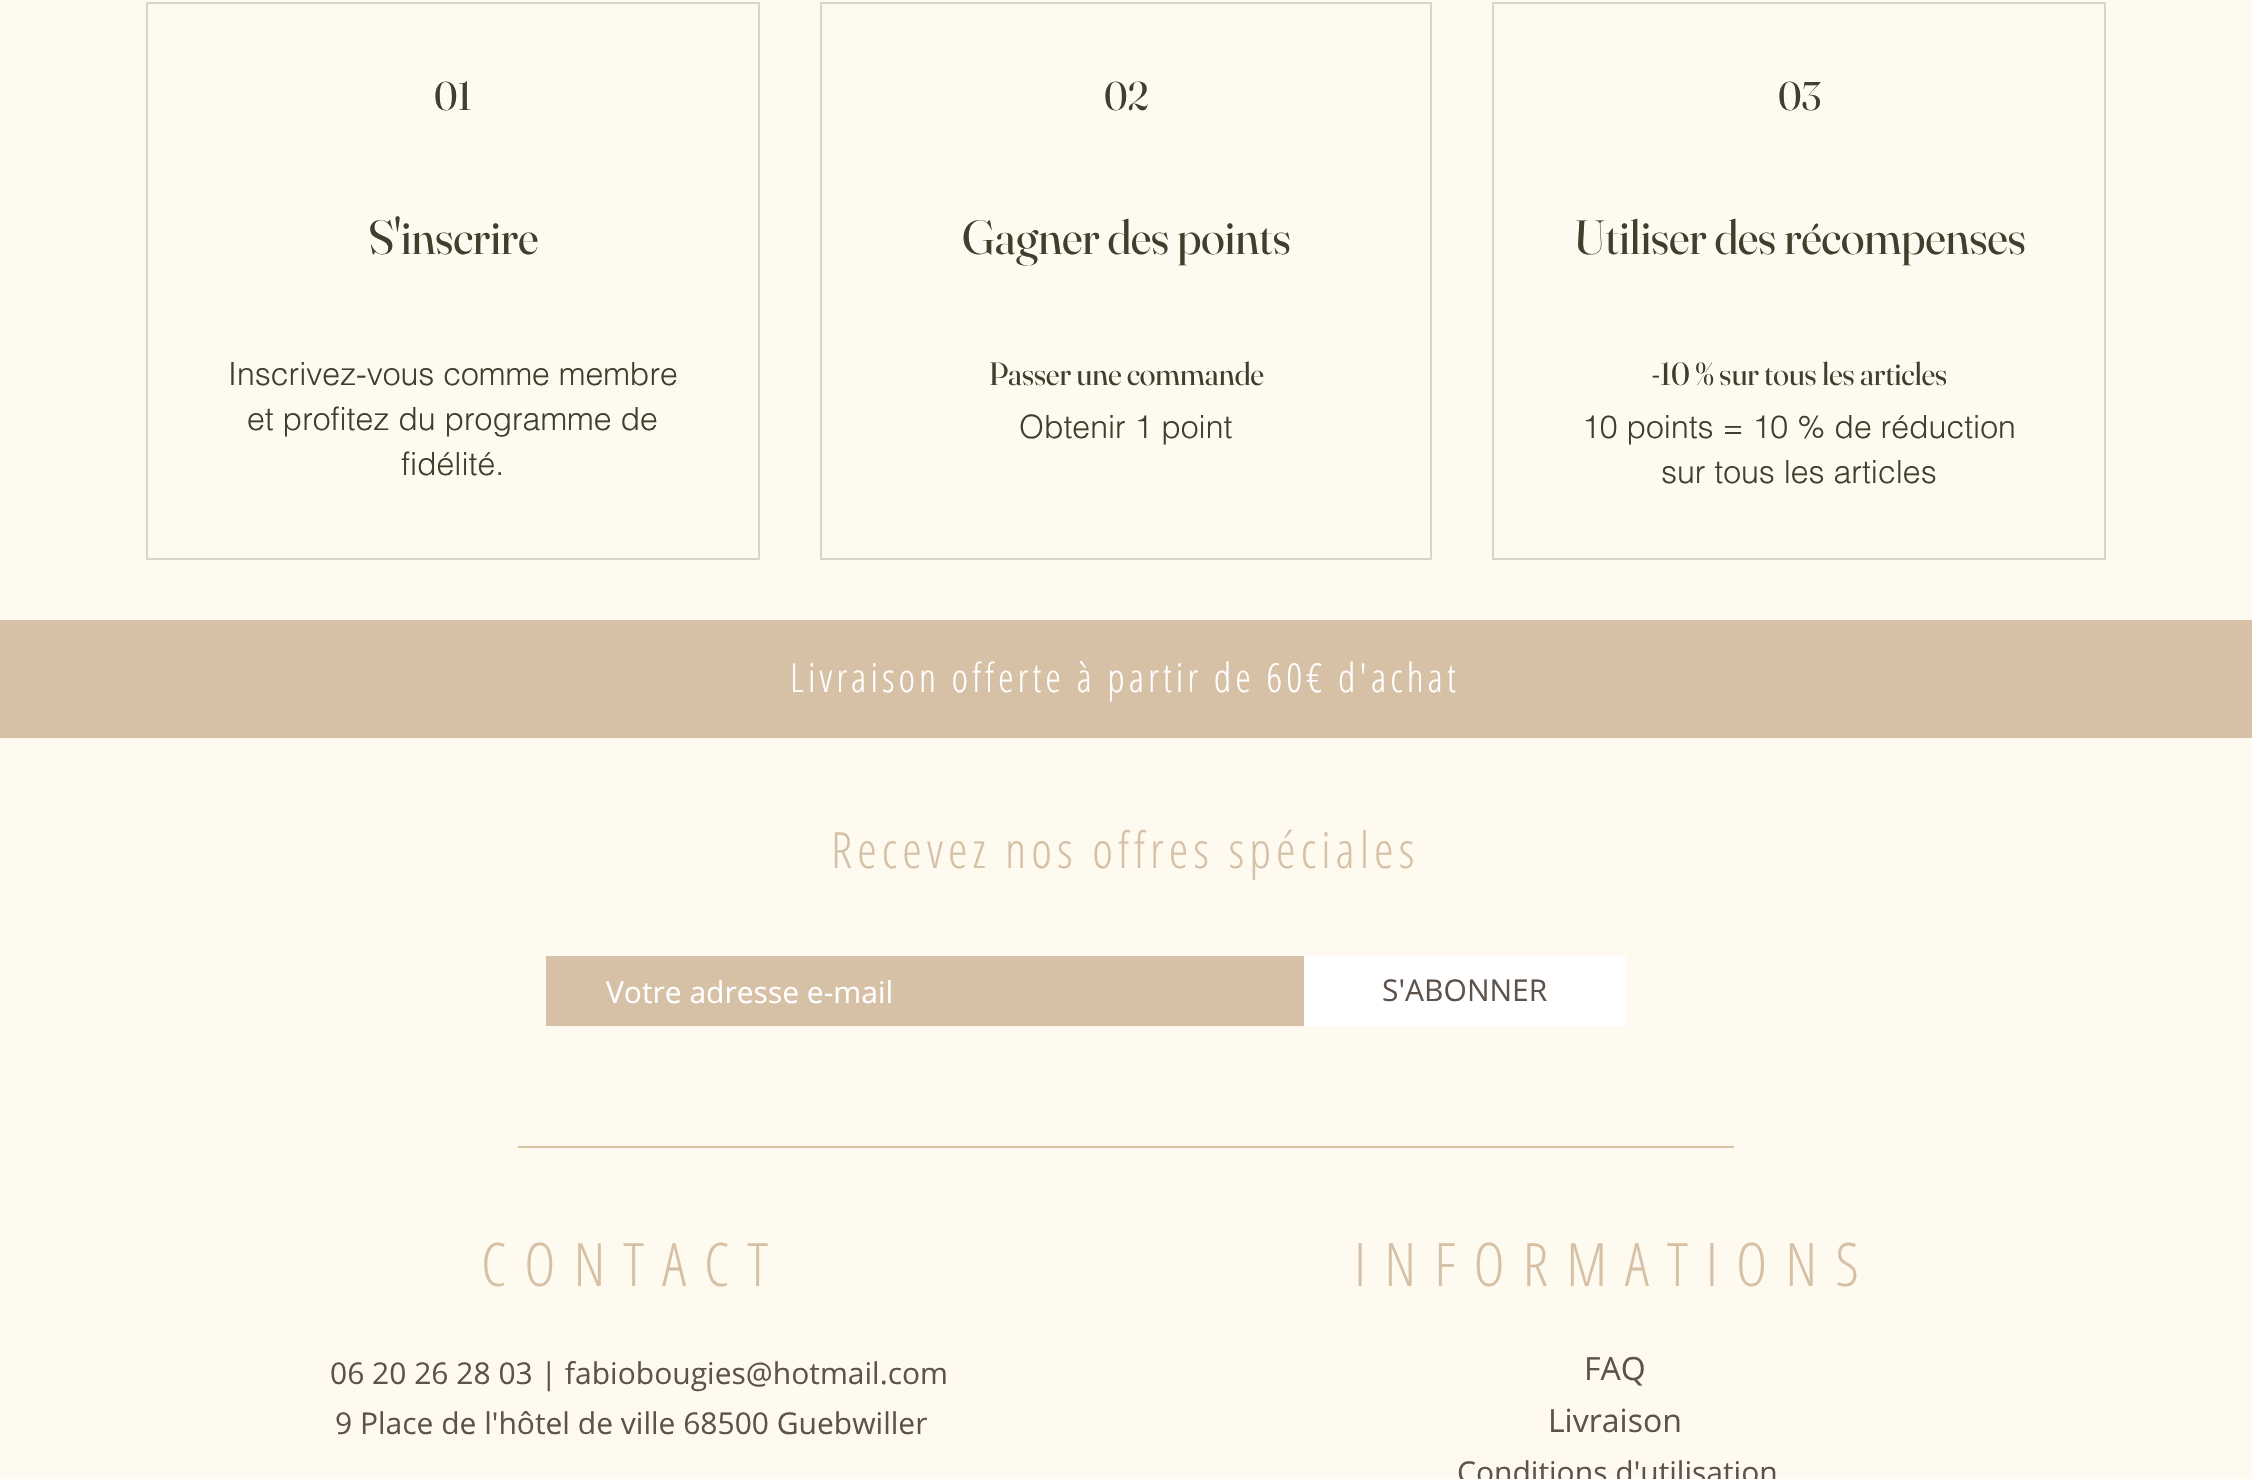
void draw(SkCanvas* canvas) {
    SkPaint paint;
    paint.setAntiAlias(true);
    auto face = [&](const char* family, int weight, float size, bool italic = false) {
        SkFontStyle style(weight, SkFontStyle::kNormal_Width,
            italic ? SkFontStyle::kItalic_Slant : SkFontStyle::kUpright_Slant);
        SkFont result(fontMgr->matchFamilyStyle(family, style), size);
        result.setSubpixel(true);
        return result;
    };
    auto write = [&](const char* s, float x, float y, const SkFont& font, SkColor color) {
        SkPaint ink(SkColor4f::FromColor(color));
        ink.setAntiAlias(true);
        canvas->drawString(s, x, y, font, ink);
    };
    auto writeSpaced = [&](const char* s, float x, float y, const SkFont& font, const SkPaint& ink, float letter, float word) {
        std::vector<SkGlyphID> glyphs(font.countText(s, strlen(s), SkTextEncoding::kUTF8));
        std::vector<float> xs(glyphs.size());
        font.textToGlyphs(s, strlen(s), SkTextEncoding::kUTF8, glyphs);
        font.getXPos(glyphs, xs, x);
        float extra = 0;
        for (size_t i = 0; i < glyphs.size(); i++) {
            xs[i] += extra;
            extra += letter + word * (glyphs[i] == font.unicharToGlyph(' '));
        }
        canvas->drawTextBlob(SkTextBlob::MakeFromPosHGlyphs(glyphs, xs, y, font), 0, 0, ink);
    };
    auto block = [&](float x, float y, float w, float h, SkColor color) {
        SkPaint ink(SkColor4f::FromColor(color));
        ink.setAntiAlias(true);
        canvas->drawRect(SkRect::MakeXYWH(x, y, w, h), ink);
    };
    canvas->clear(SkColorSetRGB(254, 250, 240));
    paint.setStyle(SkPaint::kStroke_Style);
    paint.setStrokeWidth(2);
    paint.setColor(SkColorSetRGB(216, 213, 201));
    canvas->drawRect(SkRect::MakeXYWH(147, 3, 612, 556), paint);
    auto kFont1 = face("Fraunces", 400, 40);
    write("01", 434, 110, kFont1, SkColorSetRGB(64, 63, 43));
    auto kFont2 = face("Fraunces", 400, 48);
    write("S'inscrire", 368, 254, kFont2, SkColorSetRGB(64, 63, 43));
    auto kFont3 = face("helvetica", 300, 32);
    write("Inscrivez-vous comme membre", 228, 385, kFont3, SkColorSetRGB(64, 63, 43));
    write("et profitez du programme de", 247, 430, kFont3, SkColorSetRGB(64, 63, 43));
    write("fidélité.", 401, 475, kFont3, SkColorSetRGB(64, 63, 43));
    canvas->drawRect(SkRect::MakeXYWH(821, 3, 610, 556), paint);
    write("02", 1104, 110, kFont1, SkColorSetRGB(64, 63, 43));
    write("Gagner des points", 962, 254, kFont2, SkColorSetRGB(64, 63, 43));
    auto kFont4 = face("Fraunces", 400, 32);
    write("Passer une commande", 989, 385, kFont4, SkColorSetRGB(64, 63, 43));
    write("Obtenir 1 point", 1019, 438, kFont3, SkColorSetRGB(64, 63, 43));
    canvas->drawRect(SkRect::MakeXYWH(1493, 3, 612, 556), paint);
    write("03", 1778, 110, kFont1, SkColorSetRGB(64, 63, 43));
    write("Utiliser des récompenses", 1574, 254, kFont2, SkColorSetRGB(64, 63, 43));
    write("-10 % sur tous les articles", 1652, 385, kFont4, SkColorSetRGB(64, 63, 43));
    write("10 points = 10 % de réduction", 1582, 438, kFont3, SkColorSetRGB(64, 63, 43));
    write("sur tous les articles", 1661, 483, kFont3, SkColorSetRGB(64, 63, 43));
    block(0, 620, 2252, 118, SkColorSetRGB(215, 193, 166));
    auto kFont5 = face("Open Sans Condensed", 300, 40);
    paint.setStyle(SkPaint::kFill_Style);
    paint.setColor(SK_ColorWHITE);
    writeSpaced("Livraison offerte à partir de 60€ d'achat", 790, 692, kFont5, paint, 4, 0);
    auto kFont6 = face("Open Sans Condensed", 300, 50);
    paint.setColor(SkColorSetRGB(215, 193, 166));
    writeSpaced("Recevez nos offres spéciales", 831, 868, kFont6, paint, 5, 0);
    block(546, 956, 758, 70, SkColorSetRGB(215, 193, 166));
    auto kFont7 = face("Open Sans", 400, 30);
    write("Votre adresse e-mail", 606, 1003, kFont7, SK_ColorWHITE);
    block(1304, 956, 322, 70, SK_ColorWHITE);
    write("S'ABONNER", 1382, 1001, kFont7, SkColorSetRGB(95, 82, 75));
    block(518, 1146, 1216, 2, SkColorSetRGB(215, 193, 166));
    auto kFont8 = face("Open Sans Condensed", 300, 60);
    writeSpaced("CONTACT", 481, 1286, kFont8, paint, 18, 0);
    write("06 20 26 28 03 | fabiobougies@hotmail.com", 330, 1384, kFont7, SkColorSetRGB(95, 82, 75));
    write("9 Place de l'hôtel de ville 68500 Guebwiller", 335, 1434, kFont7, SkColorSetRGB(95, 82, 75));
    writeSpaced("INFORMATIONS", 1354, 1286, kFont8, paint, 18, 0);
    auto kFont9 = face("Open Sans", 400, 32);
    write("FAQ", 1584, 1380, kFont9, SkColorSetRGB(95, 82, 75));
    write("Livraison", 1548, 1432, kFont9, SkColorSetRGB(95, 82, 75));
    write("Conditions d'utilisation", 1457, 1483, kFont7, SkColorSetRGB(95, 82, 75));
}
